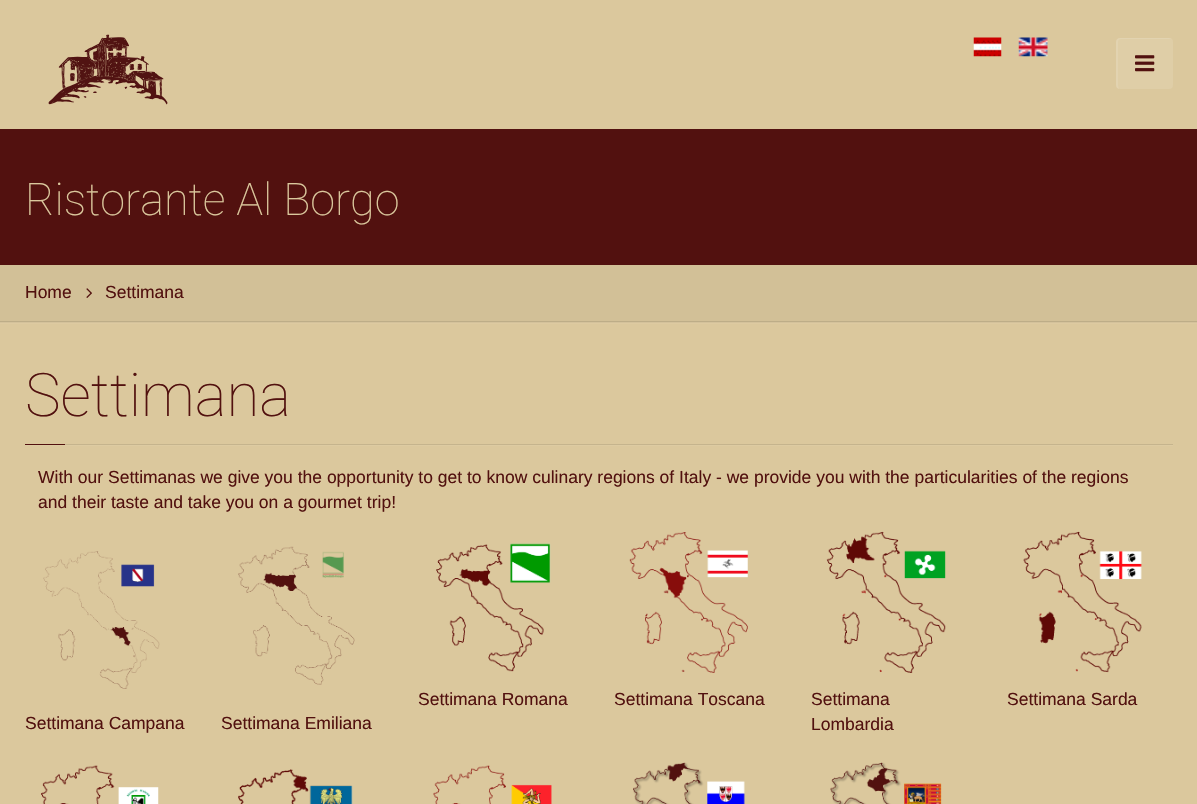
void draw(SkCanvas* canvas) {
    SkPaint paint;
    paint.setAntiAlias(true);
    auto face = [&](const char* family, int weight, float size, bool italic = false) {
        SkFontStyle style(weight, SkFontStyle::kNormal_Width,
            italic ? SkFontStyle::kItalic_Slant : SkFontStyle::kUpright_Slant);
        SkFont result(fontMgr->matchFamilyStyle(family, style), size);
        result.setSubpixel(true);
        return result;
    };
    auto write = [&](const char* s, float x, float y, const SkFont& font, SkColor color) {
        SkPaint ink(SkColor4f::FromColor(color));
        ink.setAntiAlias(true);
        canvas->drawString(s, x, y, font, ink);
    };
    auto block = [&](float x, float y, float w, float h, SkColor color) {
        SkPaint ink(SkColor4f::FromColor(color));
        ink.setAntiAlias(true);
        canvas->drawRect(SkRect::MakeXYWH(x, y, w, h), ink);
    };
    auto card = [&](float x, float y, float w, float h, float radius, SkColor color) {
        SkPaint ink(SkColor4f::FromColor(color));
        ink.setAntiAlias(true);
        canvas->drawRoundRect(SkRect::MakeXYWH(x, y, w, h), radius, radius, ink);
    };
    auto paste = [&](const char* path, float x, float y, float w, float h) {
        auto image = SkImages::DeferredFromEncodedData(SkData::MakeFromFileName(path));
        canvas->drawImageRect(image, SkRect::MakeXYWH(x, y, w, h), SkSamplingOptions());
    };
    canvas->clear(SkColorSetRGB(219, 200, 157));
    paste("pic1.png", 48, 34, 120, 71);
    paste("pic2.png", 973, 37, 29, 20);
    paste("pic3.png", 1018, 37, 30, 20);
    card(1116, 38, 57, 51, 4, SkColorSetRGB(223, 206, 167));
    paint.setColor(SkColorSetARGB(26, 255, 255, 255));
    canvas->drawPath(SkPathBuilder().moveTo(1121, 39).lineTo(1172, 39).cubicTo(1171, 39, 1170, 38, 1169, 38).lineTo(1120, 38).cubicTo(1118, 38, 1116, 40, 1116, 42).lineTo(1116, 85).cubicTo(1116, 87, 1117, 88, 1119, 89).lineTo(1118, 86).lineTo(1118, 42).cubicTo(1118, 40, 1119, 39, 1121, 39).close().detach(), paint);
    paste("pic4.png", 1135, 55, 20, 17);
    block(0, 129, 1197, 136, SkColorSetRGB(82, 17, 15));
    auto kFont1 = face("Roboto", 100, 45);
    write("Ristorante Al Borgo", 25, 215, kFont1, SkColorSetRGB(219, 200, 157));
    paint.setColor(SkColorSetRGB(221, 202, 161));
    canvas->drawPath(SkPathBuilder().moveTo(0, 322).lineTo(0, 324).lineTo(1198, 324).lineTo(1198, 266).lineTo(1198, 322).close().detach(), paint);
    block(0, 265, 1197, 58, SkColorSetARGB(10, 0, 0, 0));
    block(0, 321, 1197, 1, SkColorSetRGB(189, 173, 136));
    auto kFont2 = face("Liberation Sans", 400, 17.5f);
    write("Home", 25, 298, kFont2, SkColorSetRGB(82, 17, 15));
    paste("pic5.png", 86, 288, 6, 10);
    write("Settimana", 105, 298, kFont2, SkColorSetRGB(82, 17, 15));
    block(65, 444, 1108, 1, SkColorSetRGB(197, 180, 141));
    block(25, 445, 1148, 1, SkColorSetRGB(221, 203, 162));
    auto kFont3 = face("Roboto", 100, 60);
    write("Settimana", 25, 416, kFont3, SkColorSetRGB(82, 17, 15));
    block(25, 444, 40, 1, SkColorSetRGB(82, 17, 15));
    write("With our Settimanas we give you the opportunity to get to know culinary regions of Italy - we provide you with the particularities of the regions", 38, 483, kFont2, SkColorSetRGB(82, 17, 15));
    write("and their taste and take you on a gourmet trip!", 38, 508, kFont2, SkColorSetRGB(82, 17, 15));
    paste("pic6.png", 436, 543, 115, 129);
    write("Settimana Romana", 418, 705, kFont2, SkColorSetRGB(82, 17, 15));
    paste("pic7.png", 629, 532, 119, 141);
    write("Settimana Toscana", 614, 705, kFont2, SkColorSetRGB(82, 17, 15));
    paste("pic8.png", 826, 531, 120, 142);
    write("Settimana", 811, 705, kFont2, SkColorSetRGB(82, 17, 15));
    write("Lombardia", 811, 730, kFont2, SkColorSetRGB(82, 17, 15));
    paste("pic9.png", 1023, 531, 119, 142);
    write("Settimana Sarda", 1007, 705, kFont2, SkColorSetRGB(82, 17, 15));
    paste("pic10.png", 43, 551, 117, 138);
    write("Settimana Campana", 25, 729, kFont2, SkColorSetRGB(82, 17, 15));
    paste("pic11.png", 238, 546, 117, 139);
    write("Settimana Emiliana", 221, 729, kFont2, SkColorSetRGB(82, 17, 15));
    paste("pic12.png", 41, 765, 118, 39);
    paste("pic13.png", 238, 769, 115, 35);
    paste("pic14.png", 433, 765, 119, 39);
    paste("pic15.png", 633, 762, 112, 42);
    paste("pic16.png", 830, 762, 112, 42);
}
